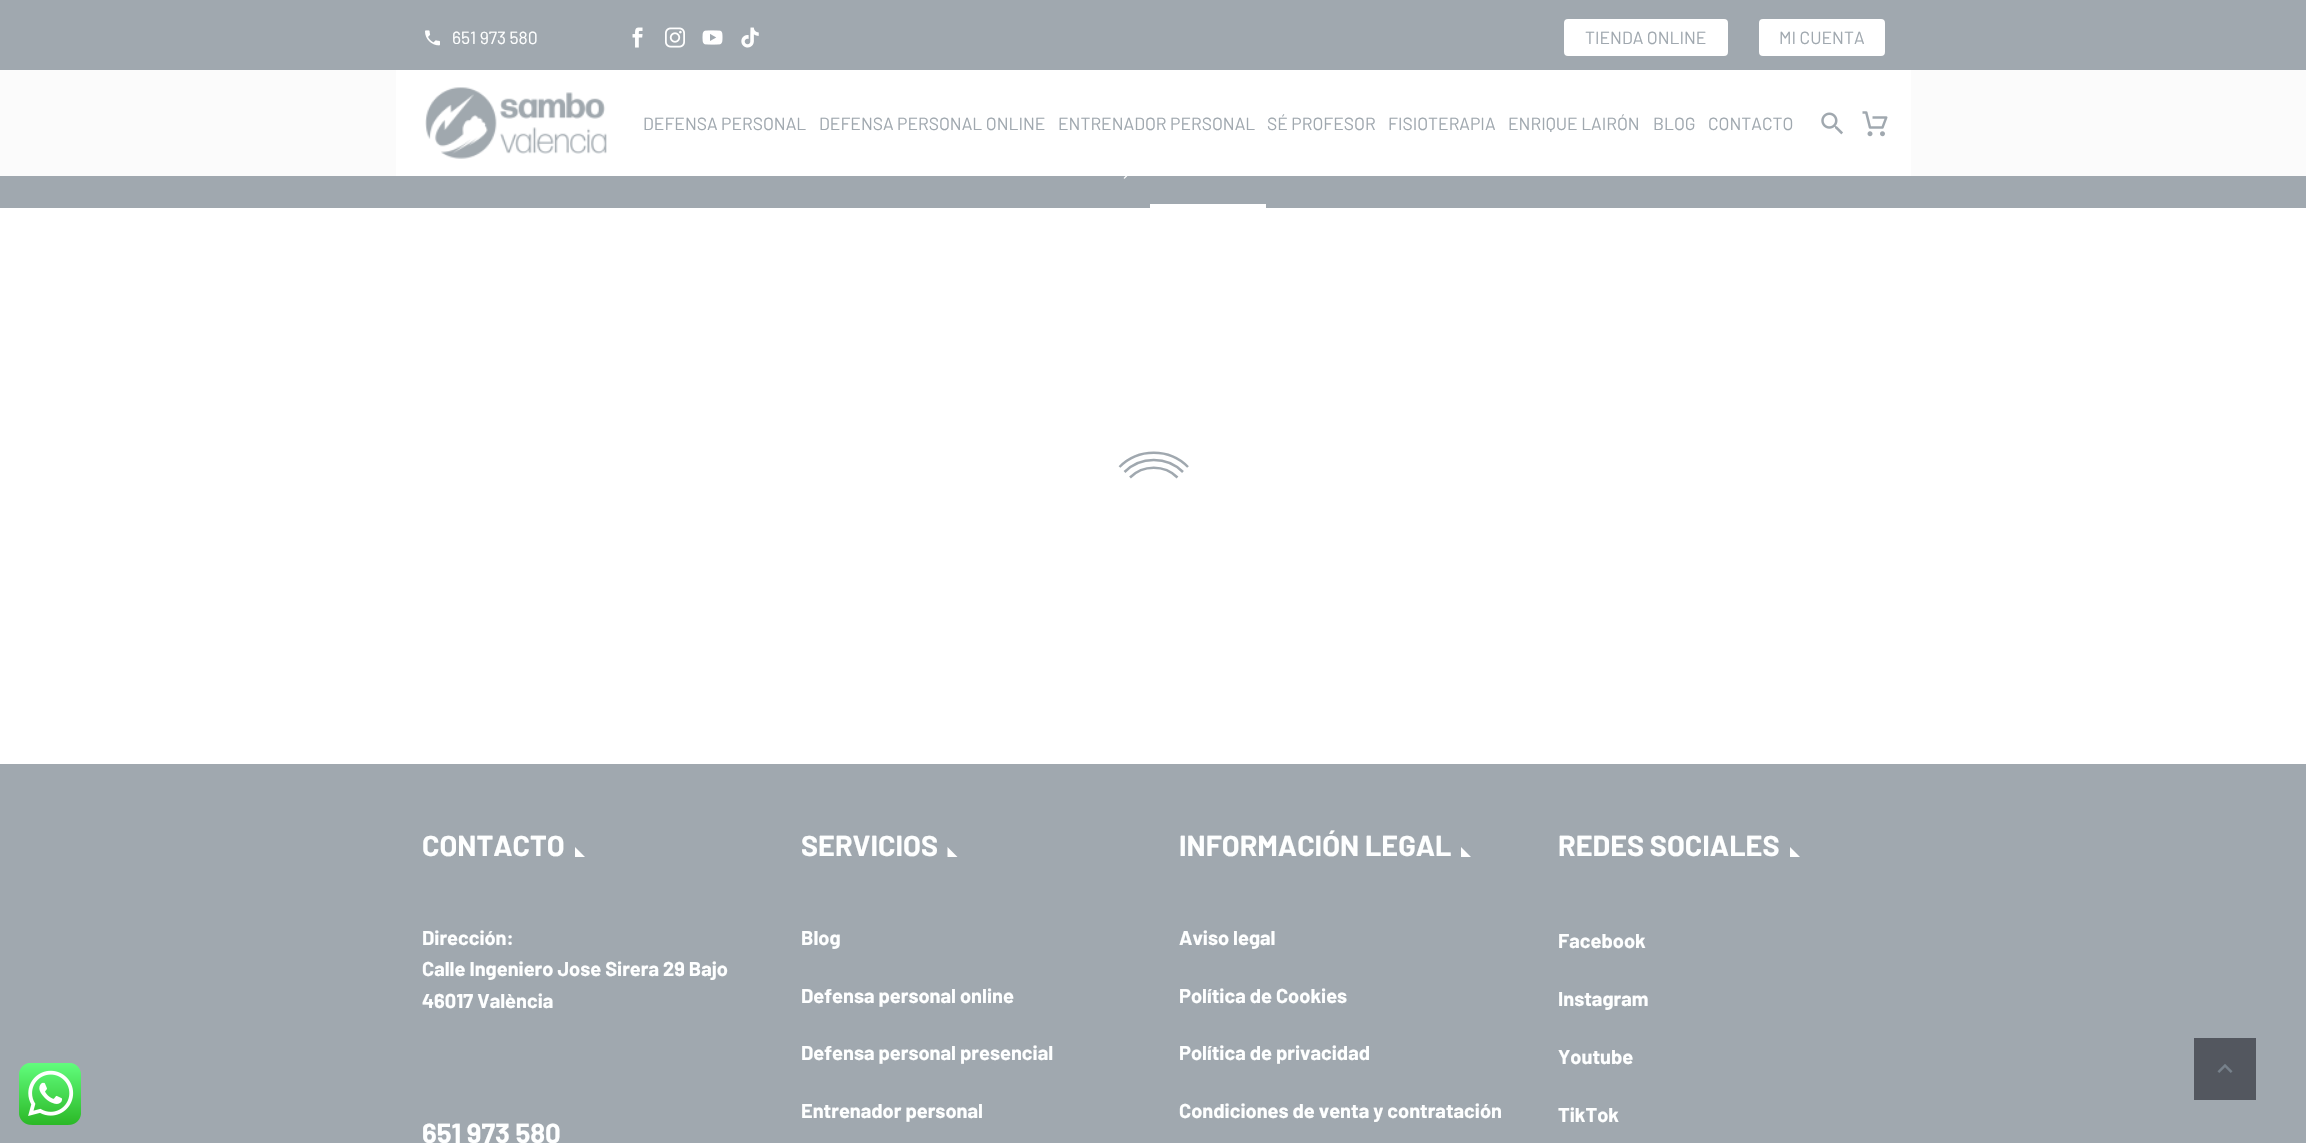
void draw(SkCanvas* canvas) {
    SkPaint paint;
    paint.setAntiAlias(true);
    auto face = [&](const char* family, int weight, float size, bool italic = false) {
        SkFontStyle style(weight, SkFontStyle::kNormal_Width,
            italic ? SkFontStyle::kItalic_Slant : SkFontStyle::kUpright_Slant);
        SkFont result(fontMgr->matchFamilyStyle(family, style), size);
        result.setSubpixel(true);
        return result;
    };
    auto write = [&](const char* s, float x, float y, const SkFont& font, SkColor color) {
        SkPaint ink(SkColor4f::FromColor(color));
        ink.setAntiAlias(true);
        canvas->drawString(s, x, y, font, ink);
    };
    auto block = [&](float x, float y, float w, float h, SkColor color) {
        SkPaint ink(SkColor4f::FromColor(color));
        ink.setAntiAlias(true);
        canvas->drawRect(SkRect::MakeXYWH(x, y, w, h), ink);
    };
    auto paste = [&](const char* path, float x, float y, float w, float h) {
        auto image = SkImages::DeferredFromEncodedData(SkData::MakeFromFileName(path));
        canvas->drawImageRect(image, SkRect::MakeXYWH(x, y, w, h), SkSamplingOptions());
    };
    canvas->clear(SK_ColorWHITE);
    block(0, 764, 2306, 379, SkColorSetRGB(160, 168, 175));
    paste("pic1.png", 19, 1063, 62, 62);
    block(0, 0, 2306, 208, SkColorSetRGB(160, 168, 175));
    paste("pic2.png", 1123, 176, 5, 3);
    block(1150, 204, 116, 4, SK_ColorWHITE);
    paint.setStyle(SkPaint::kStroke_Style);
    paint.setStrokeWidth(2.5f);
    paint.setColor(SkColorSetRGB(160, 168, 175));
    canvas->drawPath(SkPathBuilder().moveTo(1119.5f, 467).cubicTo(1138, 448, 1169.5f, 448, 1188, 467).detach(), paint);
    canvas->drawPath(SkPathBuilder().moveTo(1124.5f, 472).cubicTo(1140.5f, 456, 1167, 456, 1183, 472).moveTo(1130, 477.5f).cubicTo(1143, 464.5f, 1164.5f, 464.5f, 1177.5f, 477.5f).detach(), paint);
    paste("pic3.png", 425, 30, 15, 16);
    auto kFont1 = face("Barlow", 400, 17.5f);
    write("651 973 580", 452, 44, kFont1, SkColorSetRGB(254, 255, 255));
    paste("pic4.png", 632, 27, 11, 21);
    paste("pic5.png", 665, 27, 20, 21);
    paste("pic6.png", 702, 30, 21, 15);
    paste("pic7.png", 741, 27, 18, 21);
    paint.setStyle(SkPaint::kFill_Style);
    paint.setColor(SK_ColorWHITE);
    canvas->drawRoundRect(SkRect::MakeXYWH(1565.5f, 20.5f, 161, 34), 2.5f, 2.5f, paint);
    paint.setStyle(SkPaint::kStroke_Style);
    paint.setStrokeWidth(3);
    canvas->drawRoundRect(SkRect::MakeXYWH(1565.5f, 20.5f, 161, 34), 2.5f, 2.5f, paint);
    write("TIENDA ONLINE", 1585, 44, kFont1, SkColorSetRGB(160, 168, 175));
    paint.setStyle(SkPaint::kFill_Style);
    canvas->drawRoundRect(SkRect::MakeXYWH(1760.5f, 20.5f, 123, 34), 2.5f, 2.5f, paint);
    paint.setStyle(SkPaint::kStroke_Style);
    canvas->drawRoundRect(SkRect::MakeXYWH(1760.5f, 20.5f, 123, 34), 2.5f, 2.5f, paint);
    write("MI CUENTA", 1779, 44, kFont1, SkColorSetRGB(160, 168, 175));
    block(0, 70, 2306, 106, SkColorSetARGB(242, 255, 255, 255));
    block(396, 70, 1515, 106, SK_ColorWHITE);
    paste("pic8.png", 425, 87, 182, 72);
    write("DEFENSA PERSONAL", 643, 130, kFont1, SkColorSetRGB(160, 168, 175));
    write("DEFENSA PERSONAL ONLINE", 819, 130, kFont1, SkColorSetRGB(160, 168, 175));
    write("ENTRENADOR PERSONAL", 1058, 130, kFont1, SkColorSetRGB(160, 168, 175));
    write("SÉ PROFESOR", 1267, 130, kFont1, SkColorSetRGB(160, 168, 175));
    write("FISIOTERAPIA", 1388, 130, kFont1, SkColorSetRGB(160, 168, 175));
    write("ENRIQUE LAIRÓN", 1508, 130, kFont1, SkColorSetRGB(160, 168, 175));
    write("BLOG", 1653, 130, kFont1, SkColorSetRGB(160, 168, 175));
    write("CONTACTO", 1708, 130, kFont1, SkColorSetRGB(160, 168, 175));
    paste("pic9.png", 1821, 112, 22, 23);
    paste("pic10.png", 1862, 111, 26, 26);
    auto kFont2 = face("Barlow", 700, 28.75f);
    write("CONTACTO", 422, 856, kFont2, SkColorSetRGB(254, 255, 255));
    paint.setStyle(SkPaint::kFill_Style);
    canvas->drawPath(SkPathBuilder().moveTo(575, 847).lineTo(575, 857).lineTo(585, 857).close().detach(), paint);
    auto kFont3 = face("Barlow", 700, 20);
    write("Dirección:", 422, 945, kFont3, SkColorSetRGB(254, 255, 255));
    write("Calle Ingeniero Jose Sirera 29 Bajo", 422, 976, kFont3, SkColorSetRGB(254, 255, 255));
    write("46017 València", 422, 1008, kFont3, SkColorSetRGB(254, 255, 255));
    auto kFont4 = face("Barlow", 700, 27.5f);
    write("651 973 580", 422, 1143, kFont4, SkColorSetRGB(254, 255, 255));
    write("SERVICIOS", 801, 856, kFont2, SkColorSetRGB(254, 255, 255));
    canvas->drawPath(SkPathBuilder().moveTo(947.5f, 847).lineTo(947.5f, 857).lineTo(957.5f, 857).close().detach(), paint);
    write("Blog", 801, 945, kFont3, SkColorSetRGB(254, 255, 255));
    write("Defensa personal online", 801, 1003, kFont3, SkColorSetRGB(254, 255, 255));
    write("Defensa personal presencial", 801, 1060, kFont3, SkColorSetRGB(254, 255, 255));
    write("Entrenador personal", 801, 1118, kFont3, SkColorSetRGB(254, 255, 255));
    write("INFORMACIÓN LEGAL", 1179, 856, kFont2, SkColorSetRGB(254, 255, 255));
    canvas->drawPath(SkPathBuilder().moveTo(1461, 847).lineTo(1461, 857).lineTo(1471, 857).close().detach(), paint);
    write("Aviso legal", 1179, 945, kFont3, SkColorSetRGB(254, 255, 255));
    write("Política de Cookies", 1179, 1003, kFont3, SkColorSetRGB(254, 255, 255));
    write("Política de privacidad", 1179, 1060, kFont3, SkColorSetRGB(254, 255, 255));
    write("Condiciones de venta y contratación", 1179, 1118, kFont3, SkColorSetRGB(254, 255, 255));
    write("REDES SOCIALES", 1558, 856, kFont2, SkColorSetRGB(254, 255, 255));
    canvas->drawPath(SkPathBuilder().moveTo(1790, 847).lineTo(1790, 857).lineTo(1800, 857).close().detach(), paint);
    write("Facebook", 1558, 948, kFont3, SkColorSetRGB(254, 255, 255));
    write("Instagram", 1558, 1006, kFont3, SkColorSetRGB(254, 255, 255));
    write("Youtube", 1558, 1064, kFont3, SkColorSetRGB(254, 255, 255));
    write("TikTok", 1558, 1122, kFont3, SkColorSetRGB(254, 255, 255));
    block(2194, 1038, 62, 62, SkColorSetRGB(83, 87, 95));
    paste("pic11.png", 2217, 1064, 16, 9);
}
